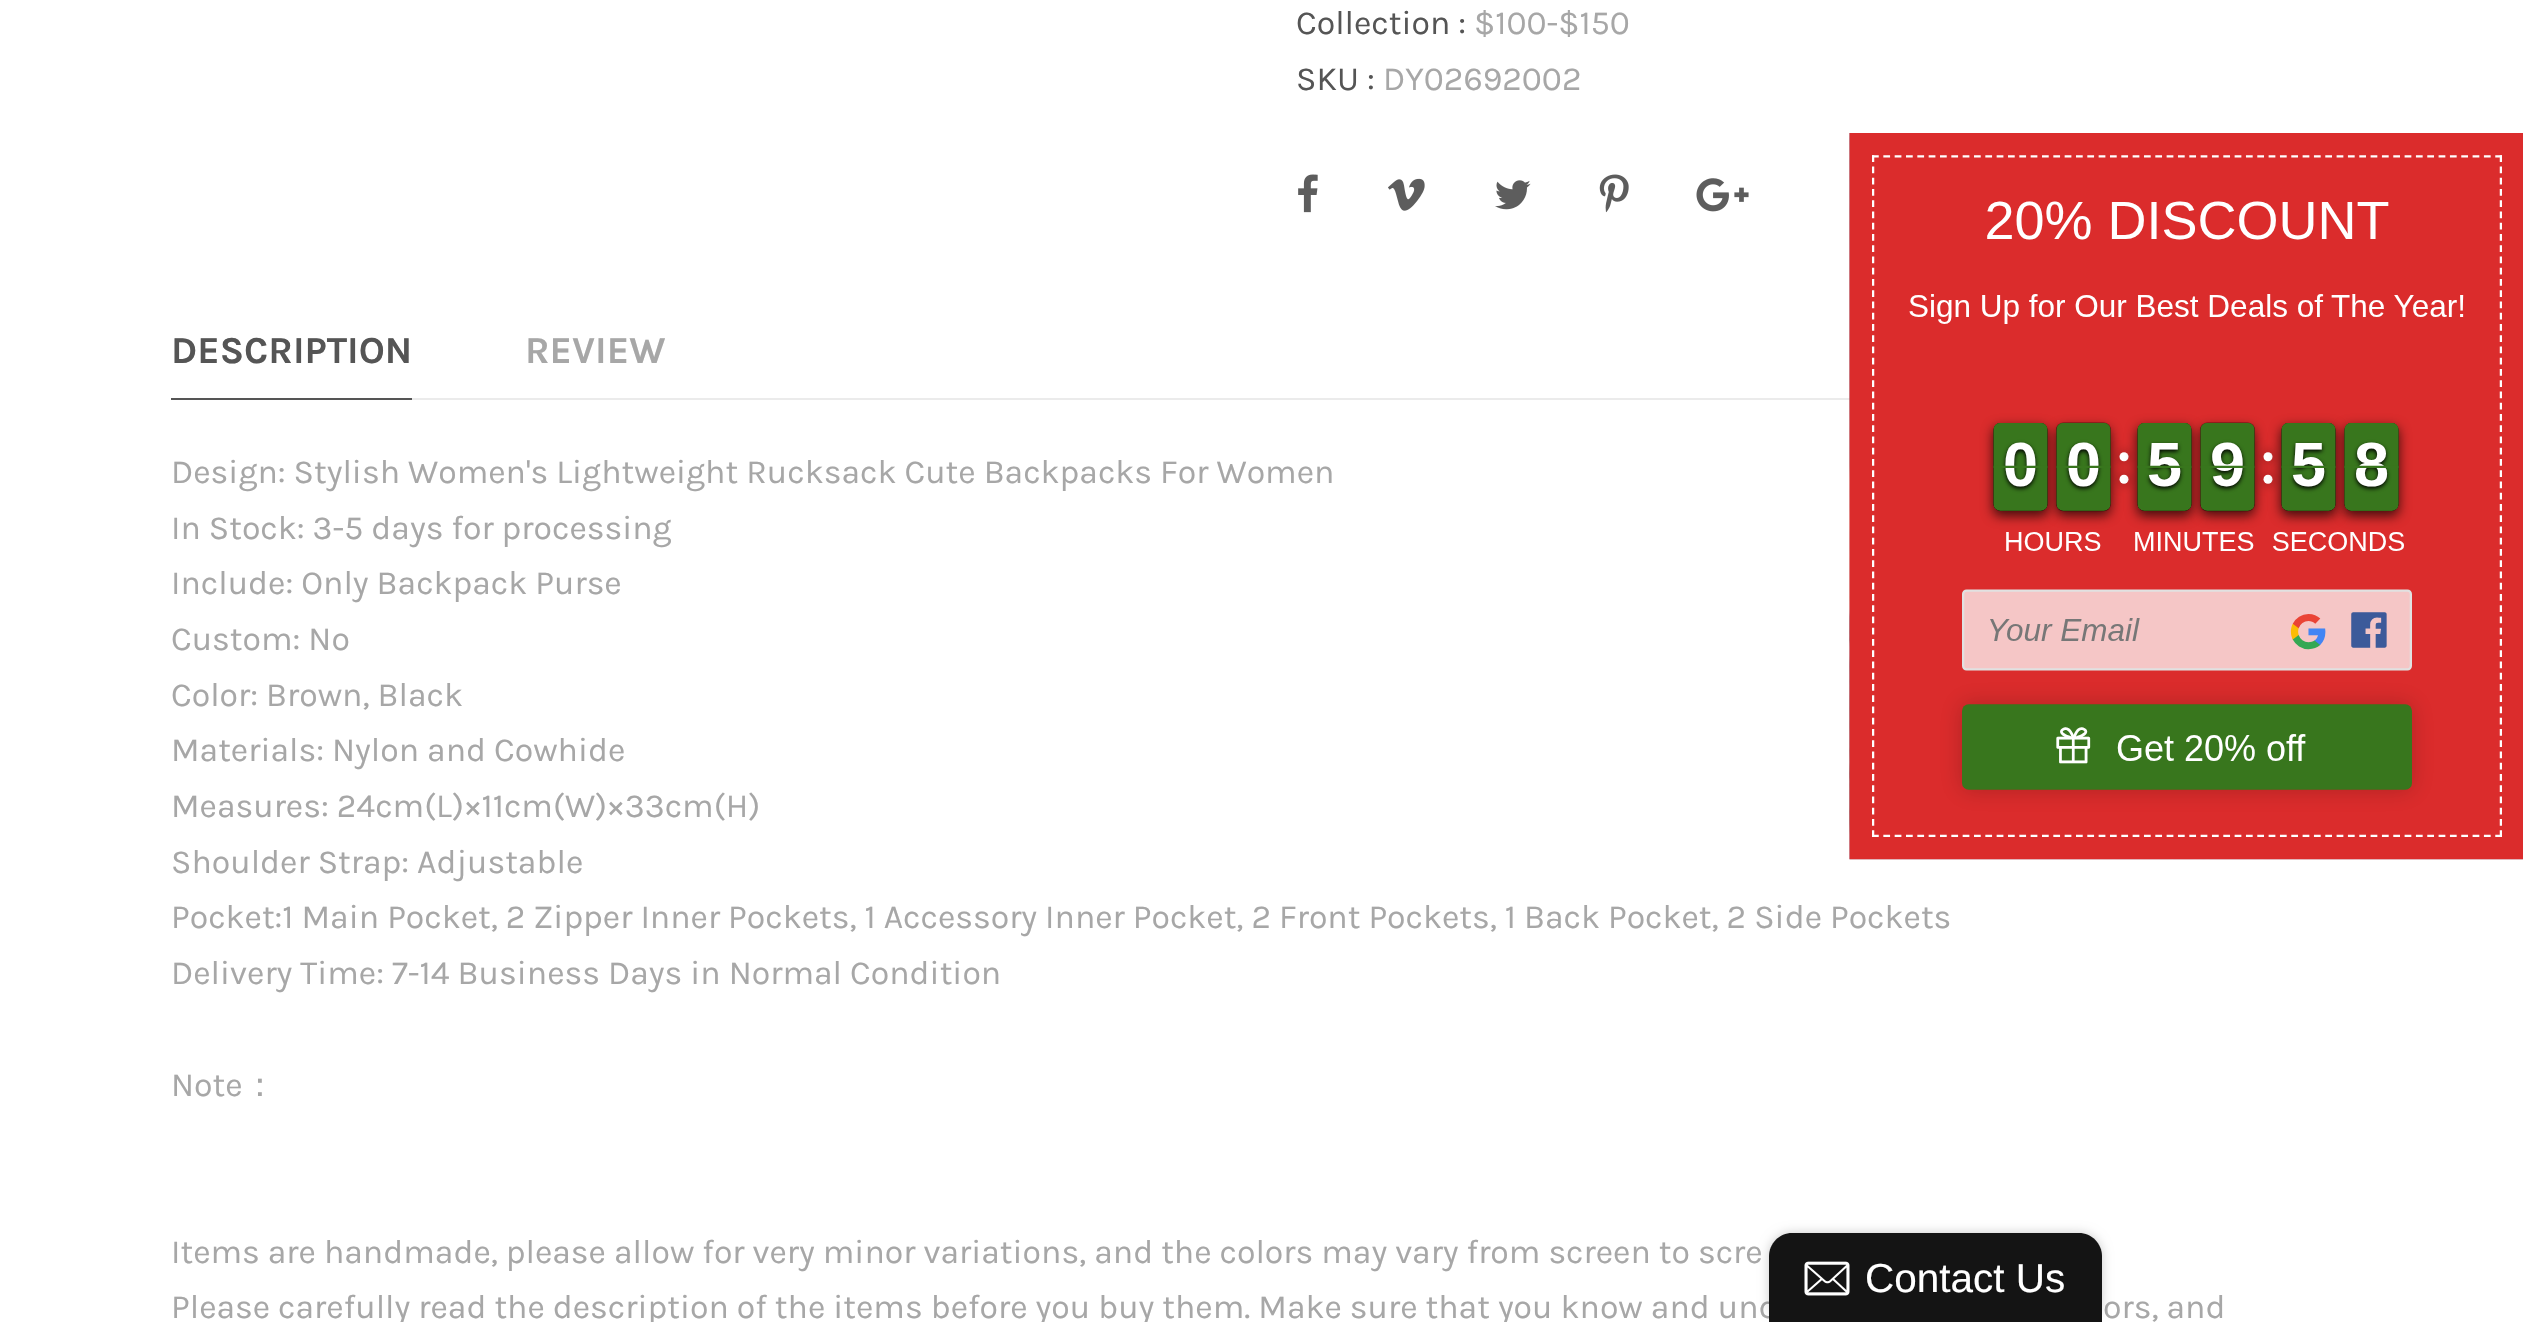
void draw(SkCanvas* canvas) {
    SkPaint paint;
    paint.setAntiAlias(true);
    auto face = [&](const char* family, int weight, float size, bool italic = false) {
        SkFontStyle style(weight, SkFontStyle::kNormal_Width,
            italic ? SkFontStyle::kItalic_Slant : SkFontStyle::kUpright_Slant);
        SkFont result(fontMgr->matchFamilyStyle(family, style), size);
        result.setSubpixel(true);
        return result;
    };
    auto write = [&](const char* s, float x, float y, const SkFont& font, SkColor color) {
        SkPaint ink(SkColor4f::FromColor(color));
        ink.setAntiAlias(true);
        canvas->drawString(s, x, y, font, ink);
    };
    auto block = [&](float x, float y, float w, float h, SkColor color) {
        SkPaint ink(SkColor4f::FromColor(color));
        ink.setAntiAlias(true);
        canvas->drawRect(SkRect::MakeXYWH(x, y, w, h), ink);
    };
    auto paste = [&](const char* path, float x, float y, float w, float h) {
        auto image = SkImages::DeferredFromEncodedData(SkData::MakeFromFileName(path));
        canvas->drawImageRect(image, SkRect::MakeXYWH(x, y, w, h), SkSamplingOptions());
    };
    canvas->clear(SK_ColorWHITE);
    auto kFont1 = face("Karla", 400, 33.75f);
    write("Collection :", 1296, 34, kFont1, SkColorSetRGB(85, 85, 85));
    write("$100-$150", 1474, 34, kFont1, SkColorSetRGB(167, 167, 167));
    write("SKU :", 1296, 90, kFont1, SkColorSetRGB(85, 85, 85));
    write("DY02692002", 1383, 90, kFont1, SkColorSetRGB(167, 167, 167));
    paste("pic1.png", 1298, 174, 20, 39);
    paste("pic2.png", 1388, 178, 37, 33);
    paste("pic3.png", 1495, 180, 36, 30);
    paste("pic4.png", 1599, 174, 30, 39);
    paste("pic5.png", 1696, 178, 53, 34);
    block(412, 398, 1438, 2, SkColorSetRGB(235, 235, 235));
    auto kFont2 = face("Karla", 700, 38.25f);
    write("DESCRIPTION", 171, 363, kFont2, SkColorSetRGB(85, 85, 85));
    block(171, 398, 241, 2, SkColorSetRGB(85, 85, 85));
    write("REVIEW", 525, 363, kFont2, SkColorSetRGB(167, 167, 167));
    write("Design: Stylish Women's Lightweight Rucksack Cute Backpacks For Women", 171, 483, kFont1, SkColorSetRGB(167, 167, 167));
    write("In Stock: 3-5 days for processing", 171, 539, kFont1, SkColorSetRGB(167, 167, 167));
    write("Include: Only Backpack Purse", 171, 594, kFont1, SkColorSetRGB(167, 167, 167));
    write("Custom: No", 171, 650, kFont1, SkColorSetRGB(167, 167, 167));
    write("Color: Brown, Black", 171, 706, kFont1, SkColorSetRGB(167, 167, 167));
    write("Materials: Nylon and Cowhide", 171, 761, kFont1, SkColorSetRGB(167, 167, 167));
    write("Measures: 24cm(L)×11cm(W)×33cm(H)", 171, 817, kFont1, SkColorSetRGB(167, 167, 167));
    write("Shoulder Strap: Adjustable", 171, 873, kFont1, SkColorSetRGB(167, 167, 167));
    write("Pocket:1 Main Pocket, 2 Zipper Inner Pockets, 1 Accessory Inner Pocket, 2 Front Pockets, 1 Back Pocket, 2 Side Pockets", 171, 928, kFont1, SkColorSetRGB(167, 167, 167));
    write("Delivery Time: 7-14 Business Days in Normal Condition", 171, 984, kFont1, SkColorSetRGB(167, 167, 167));
    write("Note", 171, 1096, kFont1, SkColorSetRGB(167, 167, 167));
    auto kFont3 = face("WenQuanYi Zen Hei", 500, 33.75f);
    write("：", 243, 1096, kFont3, SkColorSetRGB(167, 167, 167));
    write("Items are handmade, please allow for very minor variations, and the colors may vary from screen to scre", 171, 1263, kFont1, SkColorSetRGB(167, 167, 167));
    write("Please carefully read the description of the items before you buy them. Make sure that you know and und", 171, 1318, kFont1, SkColorSetRGB(167, 167, 167));
    write("ors, and", 2103, 1318, kFont1, SkColorSetRGB(167, 167, 167));
    paste("pic6.png", 1849, 133, 674, 727);
    paint.setColor(SkColorSetARGB(51, 0, 0, 0));
    paint.setMaskFilter(SkMaskFilter::MakeBlur(kNormal_SkBlurStyle, 5.5f));
    canvas->drawRoundRect(SkRect::MakeXYWH(1769, 1233, 333, 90), 23, 23, paint);
    paint.setMaskFilter(nullptr);
    paint.setColor(SkColorSetRGB(20, 20, 20));
    canvas->drawPath(SkPathBuilder().moveTo(1792, 1233).lineTo(2079, 1233).cubicTo(2091.5f, 1233, 2102, 1243.5f, 2102, 1256).lineTo(2102, 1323).lineTo(1769, 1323).lineTo(1769, 1256).cubicTo(1769, 1243.5f, 1779.5f, 1233, 1792, 1233).close().detach(), paint);
    paste("pic7.png", 1804, 1261, 46, 35);
    auto kFont4 = face("Liberation Sans", 400, 40.5f);
    write("Contact Us", 1865, 1292, kFont4, SK_ColorWHITE);
}
